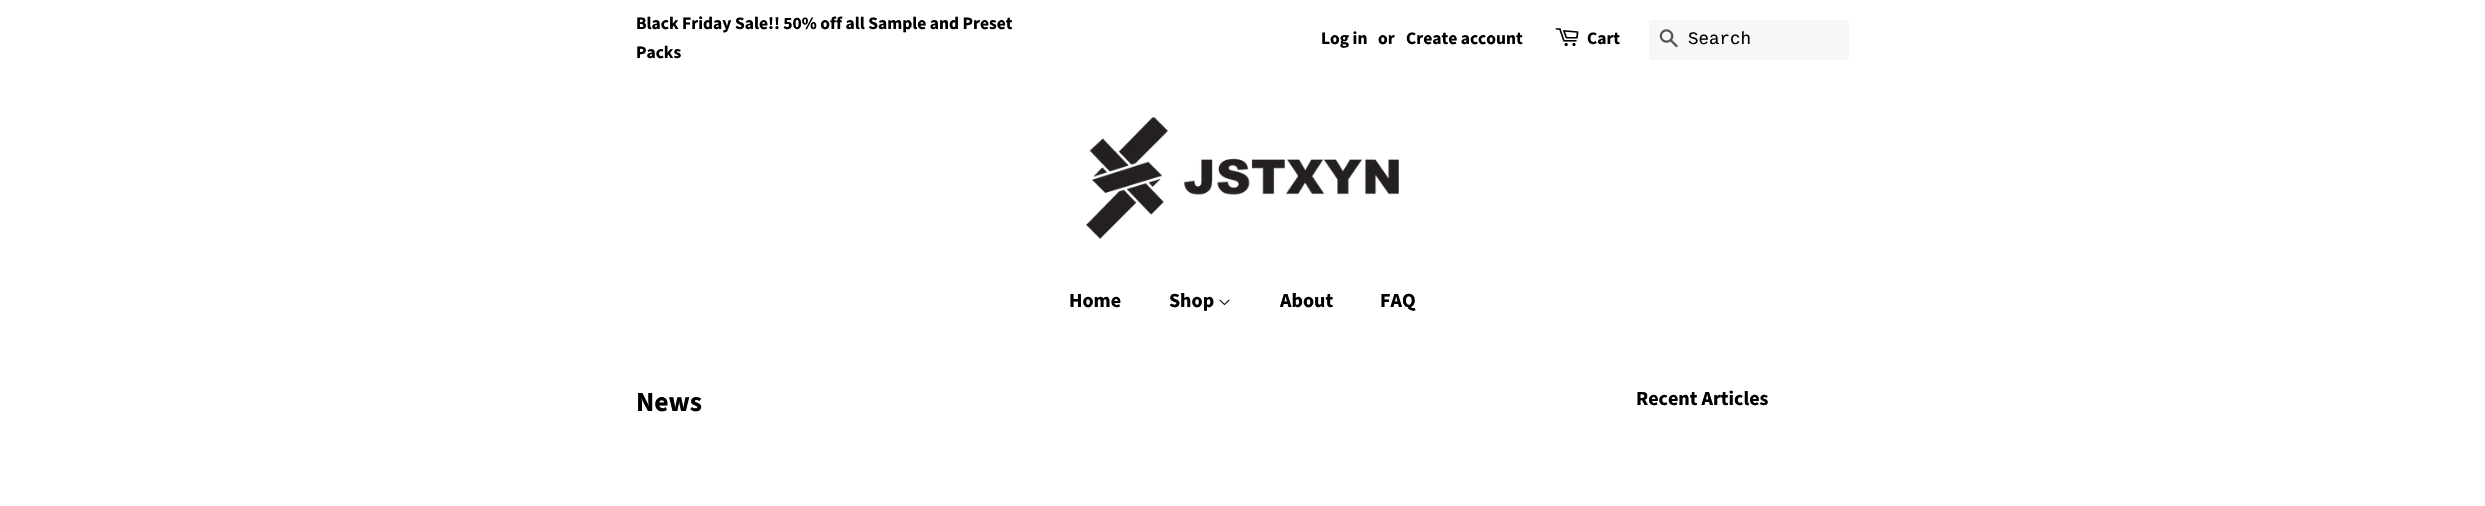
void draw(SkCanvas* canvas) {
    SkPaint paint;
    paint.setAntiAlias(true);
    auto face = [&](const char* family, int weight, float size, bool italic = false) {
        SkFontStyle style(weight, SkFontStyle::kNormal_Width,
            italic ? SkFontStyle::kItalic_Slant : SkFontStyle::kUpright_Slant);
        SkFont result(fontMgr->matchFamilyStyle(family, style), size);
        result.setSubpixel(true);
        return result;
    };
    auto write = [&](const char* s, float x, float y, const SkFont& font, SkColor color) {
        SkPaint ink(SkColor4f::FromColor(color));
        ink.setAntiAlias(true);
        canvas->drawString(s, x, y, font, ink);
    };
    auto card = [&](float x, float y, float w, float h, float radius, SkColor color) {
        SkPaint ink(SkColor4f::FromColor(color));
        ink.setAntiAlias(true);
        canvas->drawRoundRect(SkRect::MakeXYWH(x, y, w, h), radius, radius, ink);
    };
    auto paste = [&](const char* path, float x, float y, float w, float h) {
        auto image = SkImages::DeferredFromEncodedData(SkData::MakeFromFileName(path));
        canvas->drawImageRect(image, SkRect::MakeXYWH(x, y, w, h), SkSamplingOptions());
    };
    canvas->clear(SK_ColorWHITE);
    auto kFont1 = face("Source Sans Pro", 700, 17.5f);
    write("Black Friday Sale!! 50% off all Sample and Preset", 636, 29, kFont1, SK_ColorBLACK);
    write("Packs", 636, 58, kFont1, SK_ColorBLACK);
    write("Log in", 1321, 44, kFont1, SK_ColorBLACK);
    write("or", 1378, 44, kFont1, SK_ColorBLACK);
    write("Create account", 1406, 44, kFont1, SK_ColorBLACK);
    paste("pic1.png", 1555, 28, 24, 19);
    write("Cart", 1587, 44, kFont1, SK_ColorBLACK);
    card(1649, 20, 200, 40, 2.5f, SkColorSetRGB(247, 247, 247));
    paste("pic2.png", 1659, 29, 19, 19);
    auto kFont2 = face("Liberation Mono", 400, 17.5f);
    write("Search", 1688, 44, kFont2, SK_ColorBLACK);
    paste("pic3.png", 1086, 117, 313, 122);
    auto kFont3 = face("Source Sans Pro", 700, 20);
    write("Home", 1069, 307, kFont3, SK_ColorBLACK);
    write("Shop", 1169, 307, kFont3, SK_ColorBLACK);
    paste("pic4.png", 1219, 299, 11, 7);
    write("About", 1280, 307, kFont3, SK_ColorBLACK);
    write("FAQ", 1380, 307, kFont3, SK_ColorBLACK);
    auto kFont4 = face("Source Sans Pro", 700, 27.5f);
    write("News", 636, 411, kFont4, SK_ColorBLACK);
    write("Recent Articles", 1636, 405, kFont3, SK_ColorBLACK);
}
